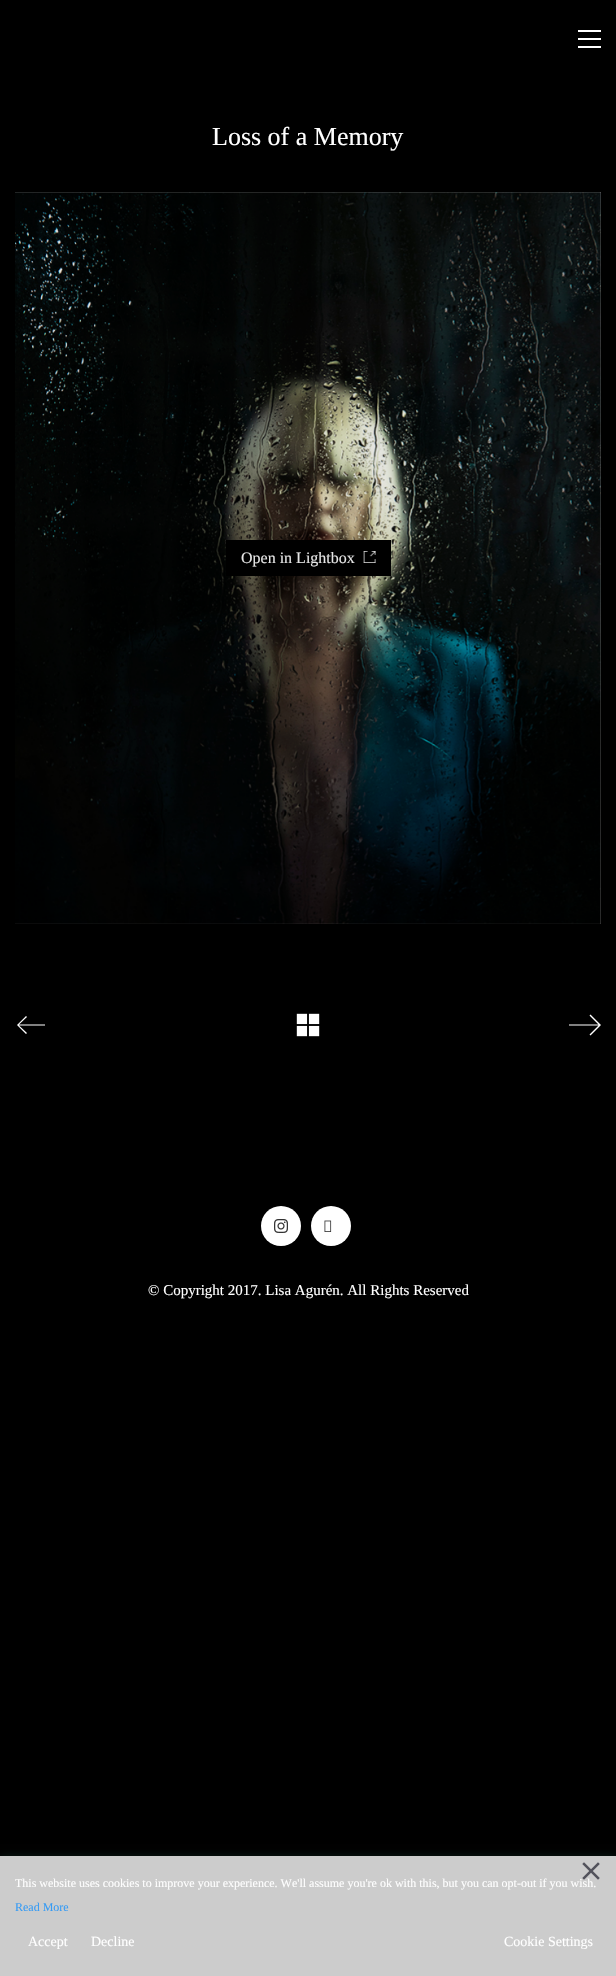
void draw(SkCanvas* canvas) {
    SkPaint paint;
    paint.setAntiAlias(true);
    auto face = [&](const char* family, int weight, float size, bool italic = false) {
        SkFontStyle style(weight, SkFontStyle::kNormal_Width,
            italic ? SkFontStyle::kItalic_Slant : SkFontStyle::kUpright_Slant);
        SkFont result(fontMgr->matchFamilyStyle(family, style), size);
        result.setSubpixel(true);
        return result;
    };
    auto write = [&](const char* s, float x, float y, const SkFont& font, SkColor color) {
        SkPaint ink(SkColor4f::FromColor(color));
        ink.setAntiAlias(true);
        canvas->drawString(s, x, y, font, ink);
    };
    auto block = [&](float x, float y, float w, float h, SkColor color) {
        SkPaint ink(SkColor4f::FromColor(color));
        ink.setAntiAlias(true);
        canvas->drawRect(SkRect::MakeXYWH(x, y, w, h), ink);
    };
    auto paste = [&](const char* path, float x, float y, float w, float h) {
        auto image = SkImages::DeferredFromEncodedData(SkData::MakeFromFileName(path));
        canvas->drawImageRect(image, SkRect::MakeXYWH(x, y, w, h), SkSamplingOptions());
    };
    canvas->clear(SK_ColorBLACK);
    block(578, 30, 23, 2, SK_ColorWHITE);
    block(578, 38, 23, 2, SK_ColorWHITE);
    block(578, 46, 23, 2, SK_ColorWHITE);
    auto kFont1 = face("Liberation Serif", 400, 26);
    write("Loss of a Memory", 212, 145, kFont1, SK_ColorWHITE);
    block(15, 192, 586, 732, SkColorSetRGB(214, 214, 214));
    paste("pic1.png", 15, 192, 586, 732);
    block(226, 540, 165, 36, SK_ColorBLACK);
    auto kFont2 = face("Liberation Serif", 400, 16);
    write("Open in Lightbox", 241, 563, kFont2, SkColorSetRGB(230, 230, 230));
    paste("pic2.png", 363, 551, 13, 12);
    paint.setColor(SK_ColorWHITE);
    canvas->drawPath(SkPathBuilder().moveTo(45, 1024.5f).lineTo(19, 1024.5f).lineTo(27, 1017).lineTo(26, 1016).lineTo(17, 1025).lineTo(26, 1034).lineTo(27, 1033).lineTo(19, 1025.5f).lineTo(45, 1025.5f).close().detach(), paint);
    paste("pic3.png", 296, 1013, 24, 24);
    canvas->drawPath(SkPathBuilder().moveTo(590.5f, 1014.5f).lineTo(589.5f, 1015.5f).lineTo(598.5f, 1024.5f).lineTo(569, 1024.5f).lineTo(569, 1025.5f).lineTo(598.5f, 1025.5f).lineTo(589.5f, 1034.5f).lineTo(590.5f, 1035.5f).lineTo(601, 1025).close().detach(), paint);
    canvas->drawCircle(281, 1226, 20, paint);
    paste("pic4.png", 274, 1219, 14, 14);
    canvas->drawCircle(331, 1226, 20, paint);
    paste("pic5.png", 324, 1220, 8, 12);
    auto kFont3 = face("Liberation Serif", 400, 15);
    write("© Copyright 2017. Lisa Agurén. All Rights Reserved", 148, 1295, kFont3, SK_ColorWHITE);
    paint.setColor(SkColorSetRGB(9, 26, 22));
    paint.setMaskFilter(SkMaskFilter::MakeBlur(kNormal_SkBlurStyle, 4));
    canvas->drawRect(SkRect::MakeXYWH(0, 1856, 616, 120), paint);
    paint.setMaskFilter(nullptr);
    block(0, 1856, 616, 120, SkColorSetRGB(204, 204, 204));
    auto kFont4 = face("Liberation Serif", 400, 12);
    write("This website uses cookies to improve your experience. We'll assume you're ok with this, but you can opt-out if you wish.", 15, 1887, kFont4, SK_ColorWHITE);
    paste("pic6.png", 582, 1862, 18, 18);
    write("Read More", 15, 1911, kFont4, SkColorSetRGB(53, 155, 245));
    auto kFont5 = face("Liberation Serif", 400, 14);
    write("Accept", 28, 1946, kFont5, SK_ColorWHITE);
    write("Decline", 91, 1946, kFont5, SK_ColorWHITE);
    write("Cookie Settings", 504, 1946, kFont5, SK_ColorWHITE);
}
